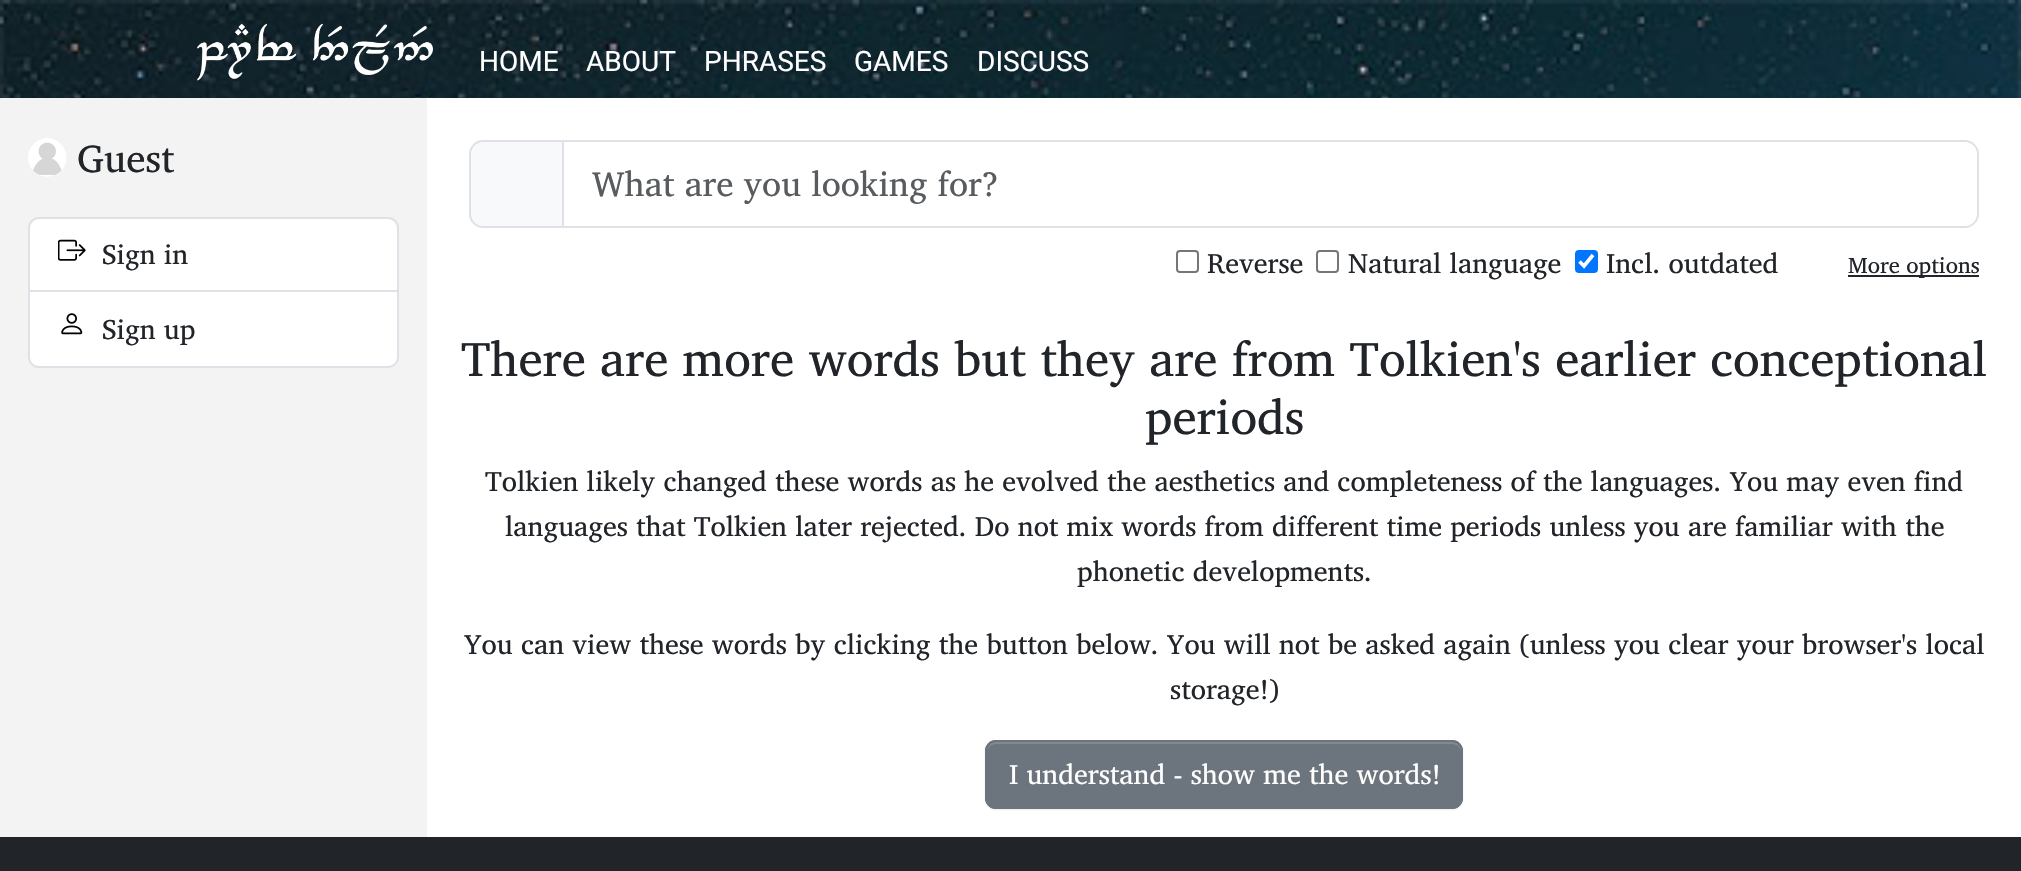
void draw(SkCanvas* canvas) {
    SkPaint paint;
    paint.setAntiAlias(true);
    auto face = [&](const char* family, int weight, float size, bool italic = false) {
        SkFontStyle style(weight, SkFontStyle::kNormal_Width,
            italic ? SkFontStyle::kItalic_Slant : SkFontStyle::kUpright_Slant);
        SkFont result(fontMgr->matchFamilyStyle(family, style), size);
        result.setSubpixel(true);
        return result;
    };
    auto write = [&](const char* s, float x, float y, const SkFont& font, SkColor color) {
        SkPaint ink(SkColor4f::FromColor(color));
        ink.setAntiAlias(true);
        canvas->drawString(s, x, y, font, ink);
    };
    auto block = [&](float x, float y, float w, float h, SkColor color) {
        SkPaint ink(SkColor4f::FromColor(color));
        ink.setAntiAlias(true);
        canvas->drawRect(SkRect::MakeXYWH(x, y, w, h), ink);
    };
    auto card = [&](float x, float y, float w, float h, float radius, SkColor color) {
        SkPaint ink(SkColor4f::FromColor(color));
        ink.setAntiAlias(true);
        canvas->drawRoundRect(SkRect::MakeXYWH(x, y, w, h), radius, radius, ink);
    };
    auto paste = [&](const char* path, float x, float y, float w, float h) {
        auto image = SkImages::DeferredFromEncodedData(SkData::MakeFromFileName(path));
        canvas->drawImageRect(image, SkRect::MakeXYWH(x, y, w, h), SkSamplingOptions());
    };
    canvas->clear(SkColorSetRGB(33, 37, 41));
    block(427, 98, 1594, 739, SK_ColorWHITE);
    paste("pic1.png", 0, 0, 2021, 98);
    paste("pic2.png", 197, 23, 236, 58);
    auto kFont1 = face("Roboto", 400, 28);
    write("HOME", 479, 71, kFont1, SK_ColorWHITE);
    write("ABOUT", 586, 71, kFont1, SK_ColorWHITE);
    write("PHRASES", 704, 71, kFont1, SK_ColorWHITE);
    write("GAMES", 854, 71, kFont1, SK_ColorWHITE);
    write("DISCUSS", 977, 71, kFont1, SK_ColorWHITE);
    block(0, 98, 427, 739, SkColorSetRGB(243, 243, 243));
    paste("pic3.png", 28, 138, 39, 39);
    auto kFont2 = face("Charis SIL", 400, 39);
    write("Guest", 77, 172, kFont2, SkColorSetRGB(33, 37, 41));
    paint.setColor(SK_ColorWHITE);
    canvas->drawPath(SkPathBuilder().moveTo(39, 218).lineTo(388, 218).cubicTo(393.5f, 218, 398, 222.5f, 398, 228).lineTo(398, 291).lineTo(29, 291).lineTo(29, 228).cubicTo(29, 222.5f, 33.5f, 218, 39, 218).close().detach(), paint);
    paint.setStyle(SkPaint::kStroke_Style);
    paint.setStrokeWidth(2);
    paint.setColor(SkColorSetRGB(222, 226, 230));
    canvas->drawPath(SkPathBuilder().moveTo(39, 218).lineTo(388, 218).cubicTo(393.5f, 218, 398, 222.5f, 398, 228).lineTo(398, 291).lineTo(29, 291).lineTo(29, 228).cubicTo(29, 222.5f, 33.5f, 218, 39, 218).close().detach(), paint);
    paste("pic4.png", 58, 239, 28, 22);
    auto kFont3 = face("Charis SIL", 400, 28);
    write("Sign in", 102, 264, kFont3, SkColorSetRGB(33, 37, 41));
    paint.setStyle(SkPaint::kFill_Style);
    paint.setColor(SK_ColorWHITE);
    canvas->drawPath(SkPathBuilder().moveTo(30, 292).lineTo(397, 292).lineTo(397, 357).cubicTo(397, 362, 393, 366, 388, 366).lineTo(39, 366).cubicTo(34, 366, 30, 362, 30, 357).close().detach(), paint);
    paint.setColor(SkColorSetRGB(222, 226, 230));
    canvas->drawPath(SkPathBuilder(SkPathFillType::kEvenOdd).moveTo(28, 292).lineTo(399, 292).lineTo(399, 357).cubicTo(399, 363, 394, 368, 388, 368).lineTo(38, 368).cubicTo(33, 368, 28, 363, 28, 357).close().moveTo(30, 292).lineTo(397, 292).lineTo(397, 357).cubicTo(397, 362, 393, 366, 388, 366).lineTo(38, 366).cubicTo(34, 366, 30, 362, 30, 357).close().detach(), paint);
    paste("pic5.png", 61, 313, 22, 22);
    write("Sign up", 102, 339, kFont3, SkColorSetRGB(33, 37, 41));
    paint.setColor(SkColorSetRGB(248, 249, 250));
    canvas->drawPath(SkPathBuilder().moveTo(483, 141).lineTo(563, 141).lineTo(563, 227).lineTo(483, 227).cubicTo(476, 227, 470, 221, 470, 214).lineTo(470, 154).cubicTo(470, 147, 476, 141, 483, 141).close().detach(), paint);
    paint.setStyle(SkPaint::kStroke_Style);
    paint.setColor(SkColorSetRGB(222, 226, 230));
    canvas->drawPath(SkPathBuilder().moveTo(483, 141).lineTo(563, 141).lineTo(563, 227).lineTo(483, 227).cubicTo(476, 227, 470, 221, 470, 214).lineTo(470, 154).cubicTo(470, 147, 476, 141, 483, 141).close().detach(), paint);
    canvas->drawPath(SkPathBuilder().moveTo(563, 141).lineTo(1965, 141).cubicTo(1972, 141, 1978, 147, 1978, 154).lineTo(1978, 214).cubicTo(1978, 221, 1972, 227, 1965, 227).lineTo(563, 227).close().detach(), paint);
    auto kFont4 = face("Charis SIL", 400, 35);
    write("What are you looking for?", 592, 196, kFont4, SkColorSetRGB(89, 92, 95));
    paint.setColor(SkColorSetRGB(118, 118, 118));
    canvas->drawRoundRect(SkRect::MakeXYWH(1177, 251, 21, 21), 3, 3, paint);
    write("Reverse", 1207, 273, kFont3, SkColorSetRGB(33, 37, 41));
    canvas->drawRoundRect(SkRect::MakeXYWH(1317, 251, 21, 21), 3, 3, paint);
    write("Natural language", 1348, 273, kFont3, SkColorSetRGB(33, 37, 41));
    card(1575, 250, 23, 23, 4, SkColorSetRGB(0, 117, 255));
    paint.setStrokeWidth(3.6f);
    paint.setColor(SK_ColorWHITE);
    canvas->drawPath(SkPathBuilder().moveTo(1579.5f, 261.5f).lineTo(1584, 266).lineTo(1593, 255).detach(), paint);
    write("Incl. outdated", 1606, 273, kFont3, SkColorSetRGB(33, 37, 41));
    block(1848, 275, 131, 2, SkColorSetRGB(33, 37, 41));
    auto kFont5 = face("Charis SIL", 400, 22.5f);
    write("More options", 1848, 273, kFont5, SkColorSetRGB(33, 37, 41));
    auto kFont6 = face("Charis SIL", 400, 49);
    write("There are more words but they are from Tolkien's earlier conceptional", 461, 376, kFont6, SkColorSetRGB(33, 37, 41));
    write("periods", 1145, 434, kFont6, SkColorSetRGB(33, 37, 41));
    write("Tolkien likely changed these words as he evolved the aesthetics and completeness of the languages. You may even find", 485, 491, kFont3, SkColorSetRGB(33, 37, 41));
    write("languages that Tolkien later rejected. Do not mix words from different time periods unless you are familiar with the", 505, 536, kFont3, SkColorSetRGB(33, 37, 41));
    write("phonetic developments.", 1077, 581, kFont3, SkColorSetRGB(33, 37, 41));
    write("You can view these words by clicking the button below. You will not be asked again (unless you clear your browser's local", 464, 654, kFont3, SkColorSetRGB(33, 37, 41));
    write("storage!)", 1170, 699, kFont3, SkColorSetRGB(33, 37, 41));
    paint.setStyle(SkPaint::kFill_Style);
    paint.setColor(SkColorSetARGB(18, 0, 0, 0));
    paint.setMaskFilter(SkMaskFilter::MakeBlur(kNormal_SkBlurStyle, 1));
    canvas->drawRoundRect(SkRect::MakeXYWH(985, 742, 478, 68), 11, 11, paint);
    paint.setMaskFilter(nullptr);
    card(985, 740, 478, 69, 11, SkColorSetRGB(108, 117, 125));
    paint.setColor(SkColorSetRGB(130, 138, 145));
    canvas->drawPath(SkPathBuilder().moveTo(996, 744).lineTo(1452, 744).cubicTo(1457, 744, 1461, 748, 1461, 752).cubicTo(1461, 747, 1458, 742, 1452, 742).lineTo(996, 742).cubicTo(990, 742, 987, 747, 987, 752).cubicTo(987, 748, 991, 744, 996, 744).close().detach(), paint);
    paint.setStyle(SkPaint::kStroke_Style);
    paint.setStrokeWidth(2);
    paint.setColor(SkColorSetRGB(108, 117, 125));
    canvas->drawRoundRect(SkRect::MakeXYWH(986, 741, 476, 67), 10, 10, paint);
    write("I understand - show me the words!", 1009, 784, kFont3, SK_ColorWHITE);
}
